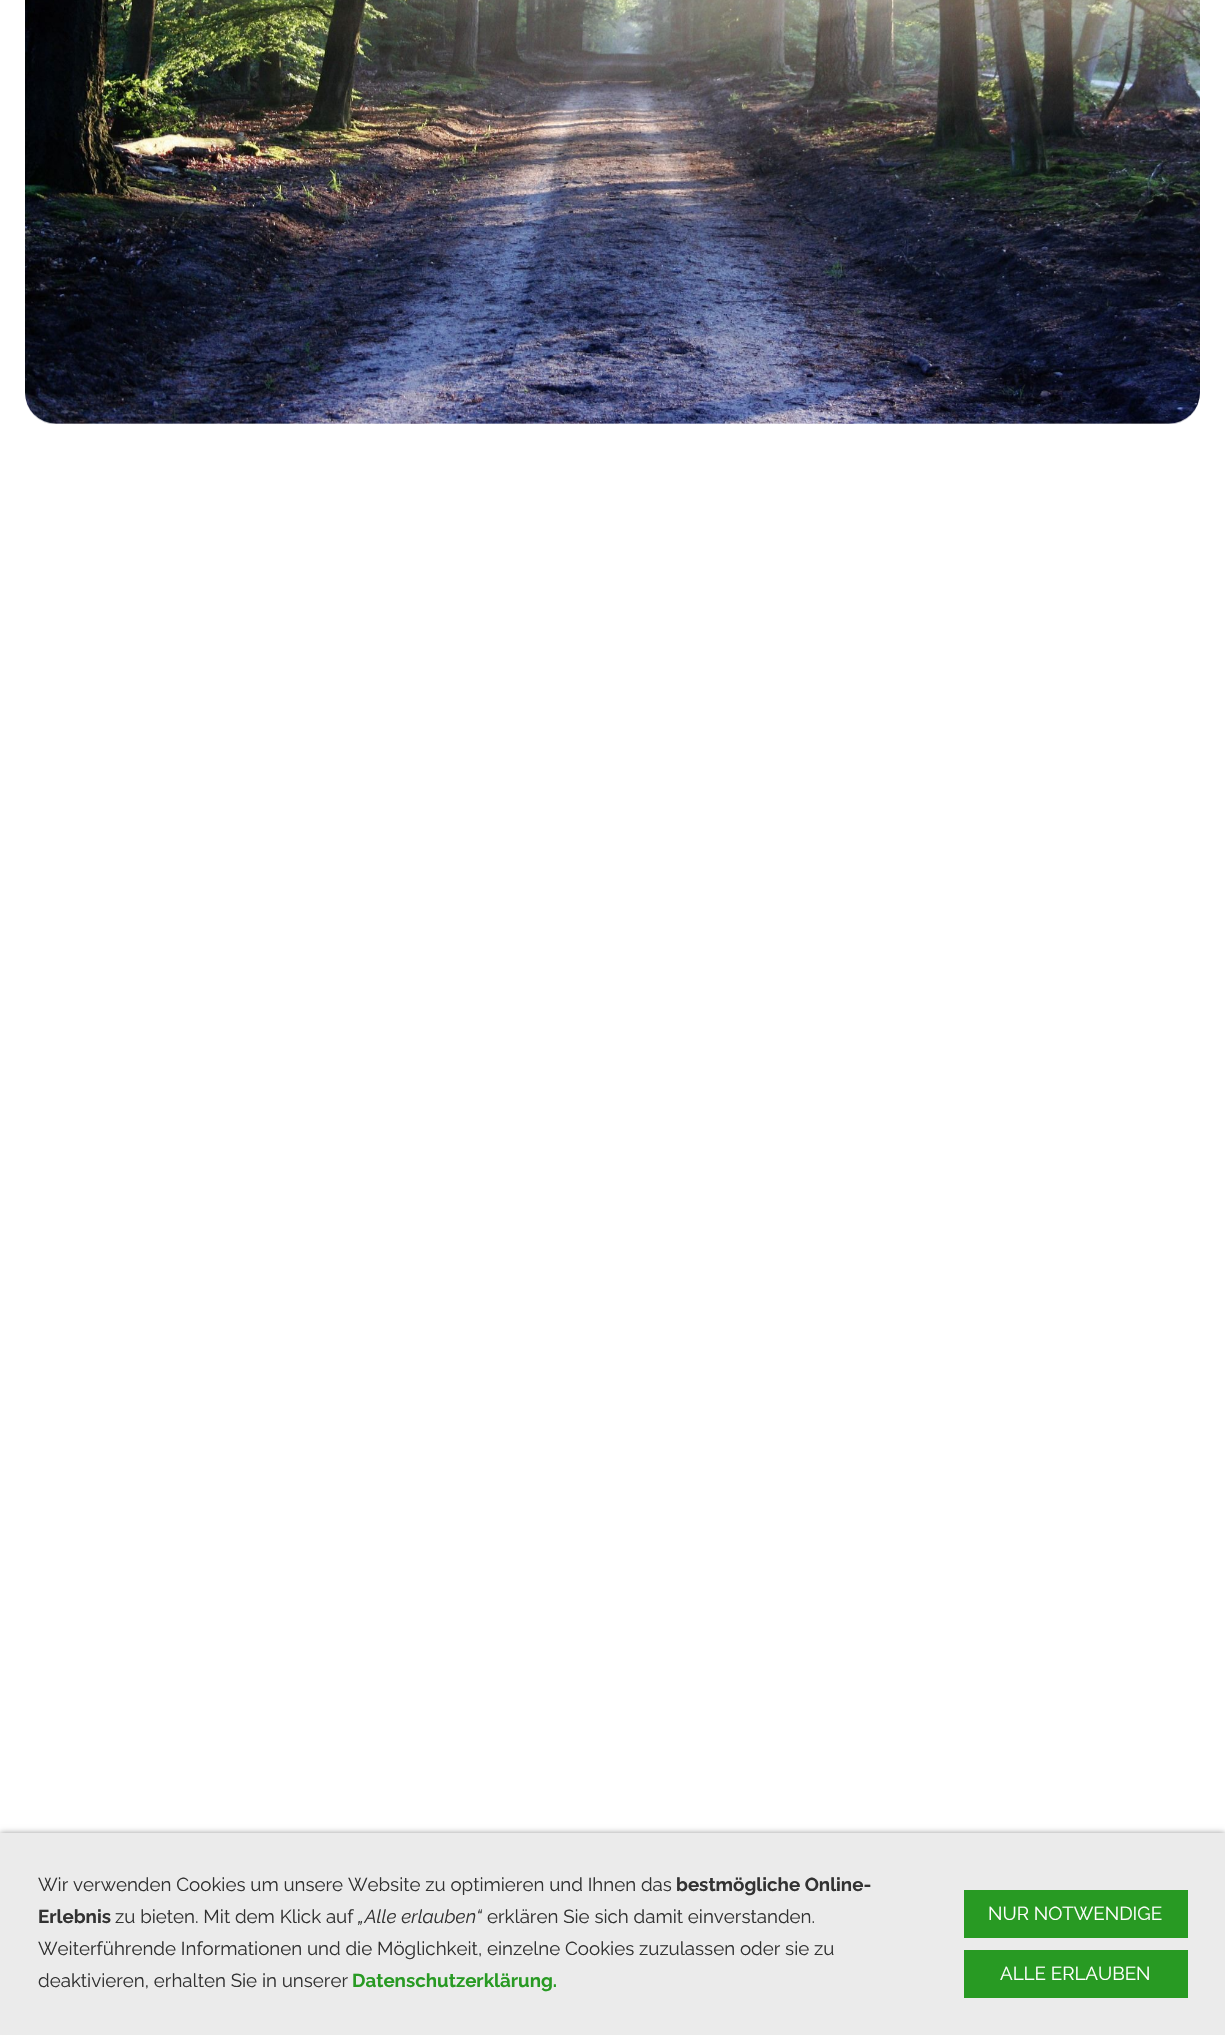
void draw(SkCanvas* canvas) {
    SkPaint paint;
    paint.setAntiAlias(true);
    auto face = [&](const char* family, int weight, float size, bool italic = false) {
        SkFontStyle style(weight, SkFontStyle::kNormal_Width,
            italic ? SkFontStyle::kItalic_Slant : SkFontStyle::kUpright_Slant);
        SkFont result(fontMgr->matchFamilyStyle(family, style), size);
        result.setSubpixel(true);
        return result;
    };
    auto write = [&](const char* s, float x, float y, const SkFont& font, SkColor color) {
        SkPaint ink(SkColor4f::FromColor(color));
        ink.setAntiAlias(true);
        canvas->drawString(s, x, y, font, ink);
    };
    auto block = [&](float x, float y, float w, float h, SkColor color) {
        SkPaint ink(SkColor4f::FromColor(color));
        ink.setAntiAlias(true);
        canvas->drawRect(SkRect::MakeXYWH(x, y, w, h), ink);
    };
    auto paste = [&](const char* path, float x, float y, float w, float h) {
        auto image = SkImages::DeferredFromEncodedData(SkData::MakeFromFileName(path));
        canvas->drawImageRect(image, SkRect::MakeXYWH(x, y, w, h), SkSamplingOptions());
    };
    canvas->clear(SK_ColorWHITE);
    paste("pic1.png", 25, 0, 1175, 424);
    paint.setColor(SkColorSetARGB(102, 0, 0, 0));
    paint.setMaskFilter(SkMaskFilter::MakeBlur(kNormal_SkBlurStyle, 3));
    canvas->drawRect(SkRect::MakeXYWH(0, 1833, 1225, 202), paint);
    paint.setMaskFilter(nullptr);
    block(0, 1833, 1225, 202, SkColorSetRGB(235, 235, 235));
    auto kFont1 = face("Raleway", 400, 18.75f);
    write("Wir verwenden Cookies um unsere Website zu optimieren und Ihnen das", 38, 1891, kFont1, SkColorSetRGB(50, 50, 50));
    auto kFont2 = face("Raleway", 700, 18.75f);
    write("bestmögliche Online-", 676, 1891, kFont2, SkColorSetRGB(50, 50, 50));
    write("Erlebnis", 38, 1923, kFont2, SkColorSetRGB(50, 50, 50));
    write("zu bieten. Mit dem Klick auf", 115, 1923, kFont1, SkColorSetRGB(50, 50, 50));
    auto kFont3 = face("Raleway", 400, 18.75f, true);
    write("„Alle erlauben“", 358, 1923, kFont3, SkColorSetRGB(50, 50, 50));
    write("erklären Sie sich damit einverstanden.", 487, 1923, kFont1, SkColorSetRGB(50, 50, 50));
    write("Weiterführende Informationen und die Möglichkeit, einzelne Cookies zuzulassen oder sie zu", 38, 1955, kFont1, SkColorSetRGB(50, 50, 50));
    write("deaktivieren, erhalten Sie in unserer", 38, 1987, kFont1, SkColorSetRGB(50, 50, 50));
    write("Datenschutzerklärung.", 352, 1987, kFont2, SkColorSetRGB(40, 154, 35));
    block(964, 1890, 224, 48, SkColorSetRGB(40, 154, 35));
    write("NUR NOTWENDIGE", 988, 1920, kFont1, SK_ColorWHITE);
    block(964, 1950, 224, 48, SkColorSetRGB(40, 154, 35));
    write("ALLE ERLAUBEN", 1000, 1980, kFont1, SK_ColorWHITE);
}
